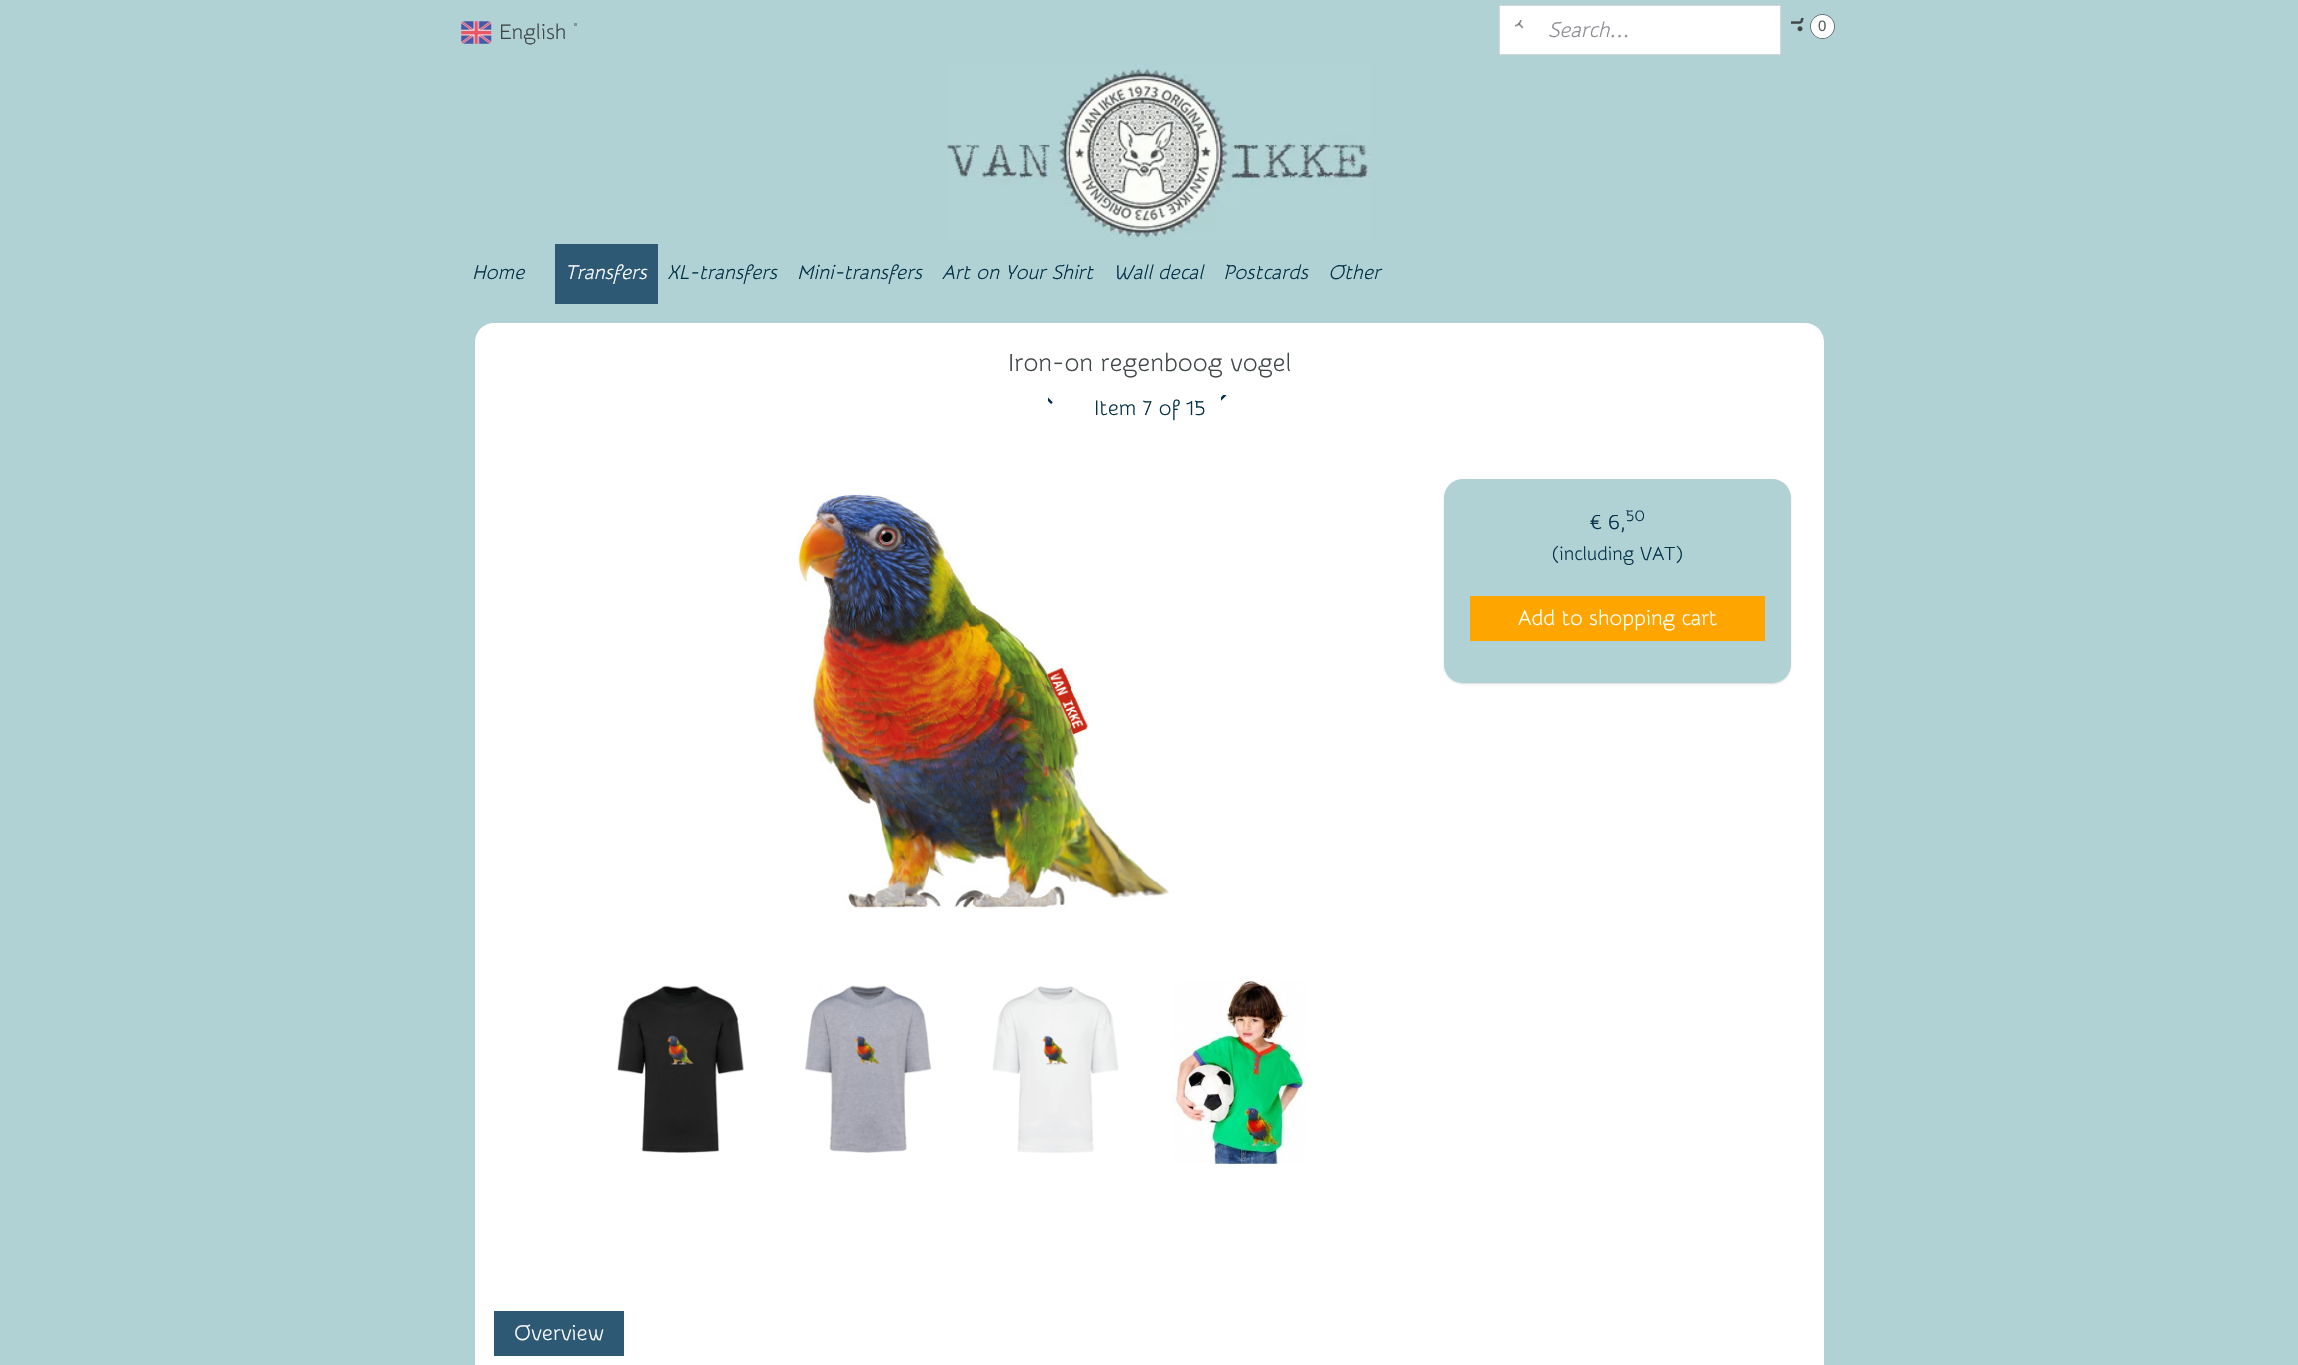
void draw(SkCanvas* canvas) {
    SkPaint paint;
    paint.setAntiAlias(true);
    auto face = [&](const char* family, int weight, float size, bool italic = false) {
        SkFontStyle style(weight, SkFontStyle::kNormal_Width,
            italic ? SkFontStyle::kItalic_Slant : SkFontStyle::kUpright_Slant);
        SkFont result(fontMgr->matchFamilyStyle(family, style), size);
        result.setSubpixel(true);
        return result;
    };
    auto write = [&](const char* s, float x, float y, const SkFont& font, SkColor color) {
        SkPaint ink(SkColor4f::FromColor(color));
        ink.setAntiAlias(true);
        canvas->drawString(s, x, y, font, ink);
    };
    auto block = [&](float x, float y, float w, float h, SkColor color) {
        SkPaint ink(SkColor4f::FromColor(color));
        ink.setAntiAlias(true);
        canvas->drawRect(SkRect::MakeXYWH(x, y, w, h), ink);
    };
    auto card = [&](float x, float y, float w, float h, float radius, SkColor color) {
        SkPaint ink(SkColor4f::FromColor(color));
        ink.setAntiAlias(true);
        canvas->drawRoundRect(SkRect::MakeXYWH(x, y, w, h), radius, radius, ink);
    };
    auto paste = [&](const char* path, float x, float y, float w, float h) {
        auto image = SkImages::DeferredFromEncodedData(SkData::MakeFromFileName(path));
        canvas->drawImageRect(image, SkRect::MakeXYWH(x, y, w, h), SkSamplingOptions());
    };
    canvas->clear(SkColorSetRGB(177, 210, 213));
    paste("pic1.png", 461, 21, 31, 23);
    auto kFont1 = face("Snippet", 400, 21.25f);
    write("English", 499, 39, kFont1, SkColorSetRGB(65, 71, 73));
    block(574, 23, 3, 3, SkColorSetRGB(129, 150, 153));
    paint.setColor(SK_ColorWHITE);
    canvas->drawRect(SkRect::MakeXYWH(1499.5f, 5.5f, 281, 49), paint);
    paint.setStyle(SkPaint::kStroke_Style);
    paint.setStrokeWidth(1);
    paint.setColor(SkColorSetRGB(211, 213, 217));
    canvas->drawRect(SkRect::MakeXYWH(1499.5f, 5.5f, 281, 49), paint);
    paste("pic2.png", 1515, 20, 9, 9);
    auto kFont2 = face("Snippet", 400, 21.25f, true);
    write("Search...", 1548, 37, kFont2, SkColorSetRGB(137, 140, 145));
    paste("pic3.png", 1791, 18, 13, 14);
    paint.setColor(SkColorSetRGB(87, 91, 98));
    canvas->drawCircle(1822.5f, 26.5f, 12, paint);
    paint.setStyle(SkPaint::kFill_Style);
    paint.setColor(SK_ColorWHITE);
    canvas->drawCircle(1822.5f, 26.5f, 11.5f, paint);
    auto kFont3 = face("Liberation Sans", 400, 15);
    write("0", 1818, 31, kFont3, SkColorSetRGB(87, 91, 98));
    paste("pic4.png", 947, 65, 423, 175);
    auto kFont4 = face("Snippet", 400, 20, true);
    write("Home", 472, 279, kFont4, SkColorSetRGB(2, 48, 71));
    block(555, 244, 103, 60, SkColorSetRGB(46, 89, 117));
    write("Transfers", 565, 279, kFont4, SK_ColorWHITE);
    write("XL-transfers", 667, 279, kFont4, SkColorSetRGB(2, 48, 71));
    write("Mini-transfers", 797, 279, kFont4, SkColorSetRGB(2, 48, 71));
    write("Art on Your Shirt", 942, 279, kFont4, SkColorSetRGB(2, 48, 71));
    write("Wall decal", 1113, 279, kFont4, SkColorSetRGB(2, 48, 71));
    write("Postcards", 1223, 279, kFont4, SkColorSetRGB(2, 48, 71));
    write("Other", 1328, 279, kFont4, SkColorSetRGB(2, 48, 71));
    card(475, 323, 1349, 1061, 19, SK_ColorWHITE);
    auto kFont5 = face("Snippet", 400, 25);
    write("Iron-on regenboog vogel", 1008, 371, kFont5, SkColorSetRGB(65, 71, 73));
    paste("pic5.png", 1048, 397, 5, 7);
    write("Item 7 of 15", 1094, 415, kFont1, SkColorSetRGB(2, 48, 71));
    paste("pic6.png", 1221, 395, 6, 6);
    paste("pic7.png", 797, 494, 372, 415);
    paste("pic8.png", 617, 985, 127, 168);
    paste("pic9.png", 805, 985, 127, 168);
    paste("pic10.png", 992, 986, 127, 167);
    paste("pic11.png", 1171, 980, 135, 184);
    paint.setColor(SkColorSetARGB(38, 0, 0, 0));
    paint.setMaskFilter(SkMaskFilter::MakeBlur(kNormal_SkBlurStyle, 1));
    canvas->drawRoundRect(SkRect::MakeXYWH(1444, 480, 347, 204), 19, 19, paint);
    paint.setMaskFilter(nullptr);
    card(1444, 479, 347, 204, 19, SkColorSetRGB(177, 210, 213));
    write("€ 6,", 1590, 529, kFont1, SkColorSetRGB(2, 48, 71));
    auto kFont6 = face("Snippet", 400, 16);
    write("50", 1626, 521, kFont6, SkColorSetRGB(2, 48, 71));
    auto kFont7 = face("Snippet", 400, 19);
    write("(including VAT)", 1552, 560, kFont7, SkColorSetRGB(2, 48, 71));
    block(1470, 596, 295, 45, SkColorSetRGB(255, 165, 0));
    write("Add to shopping cart", 1518, 625, kFont1, SK_ColorWHITE);
    block(494, 1311, 130, 45, SkColorSetRGB(46, 89, 117));
    write("Overview", 514, 1340, kFont1, SK_ColorWHITE);
}
